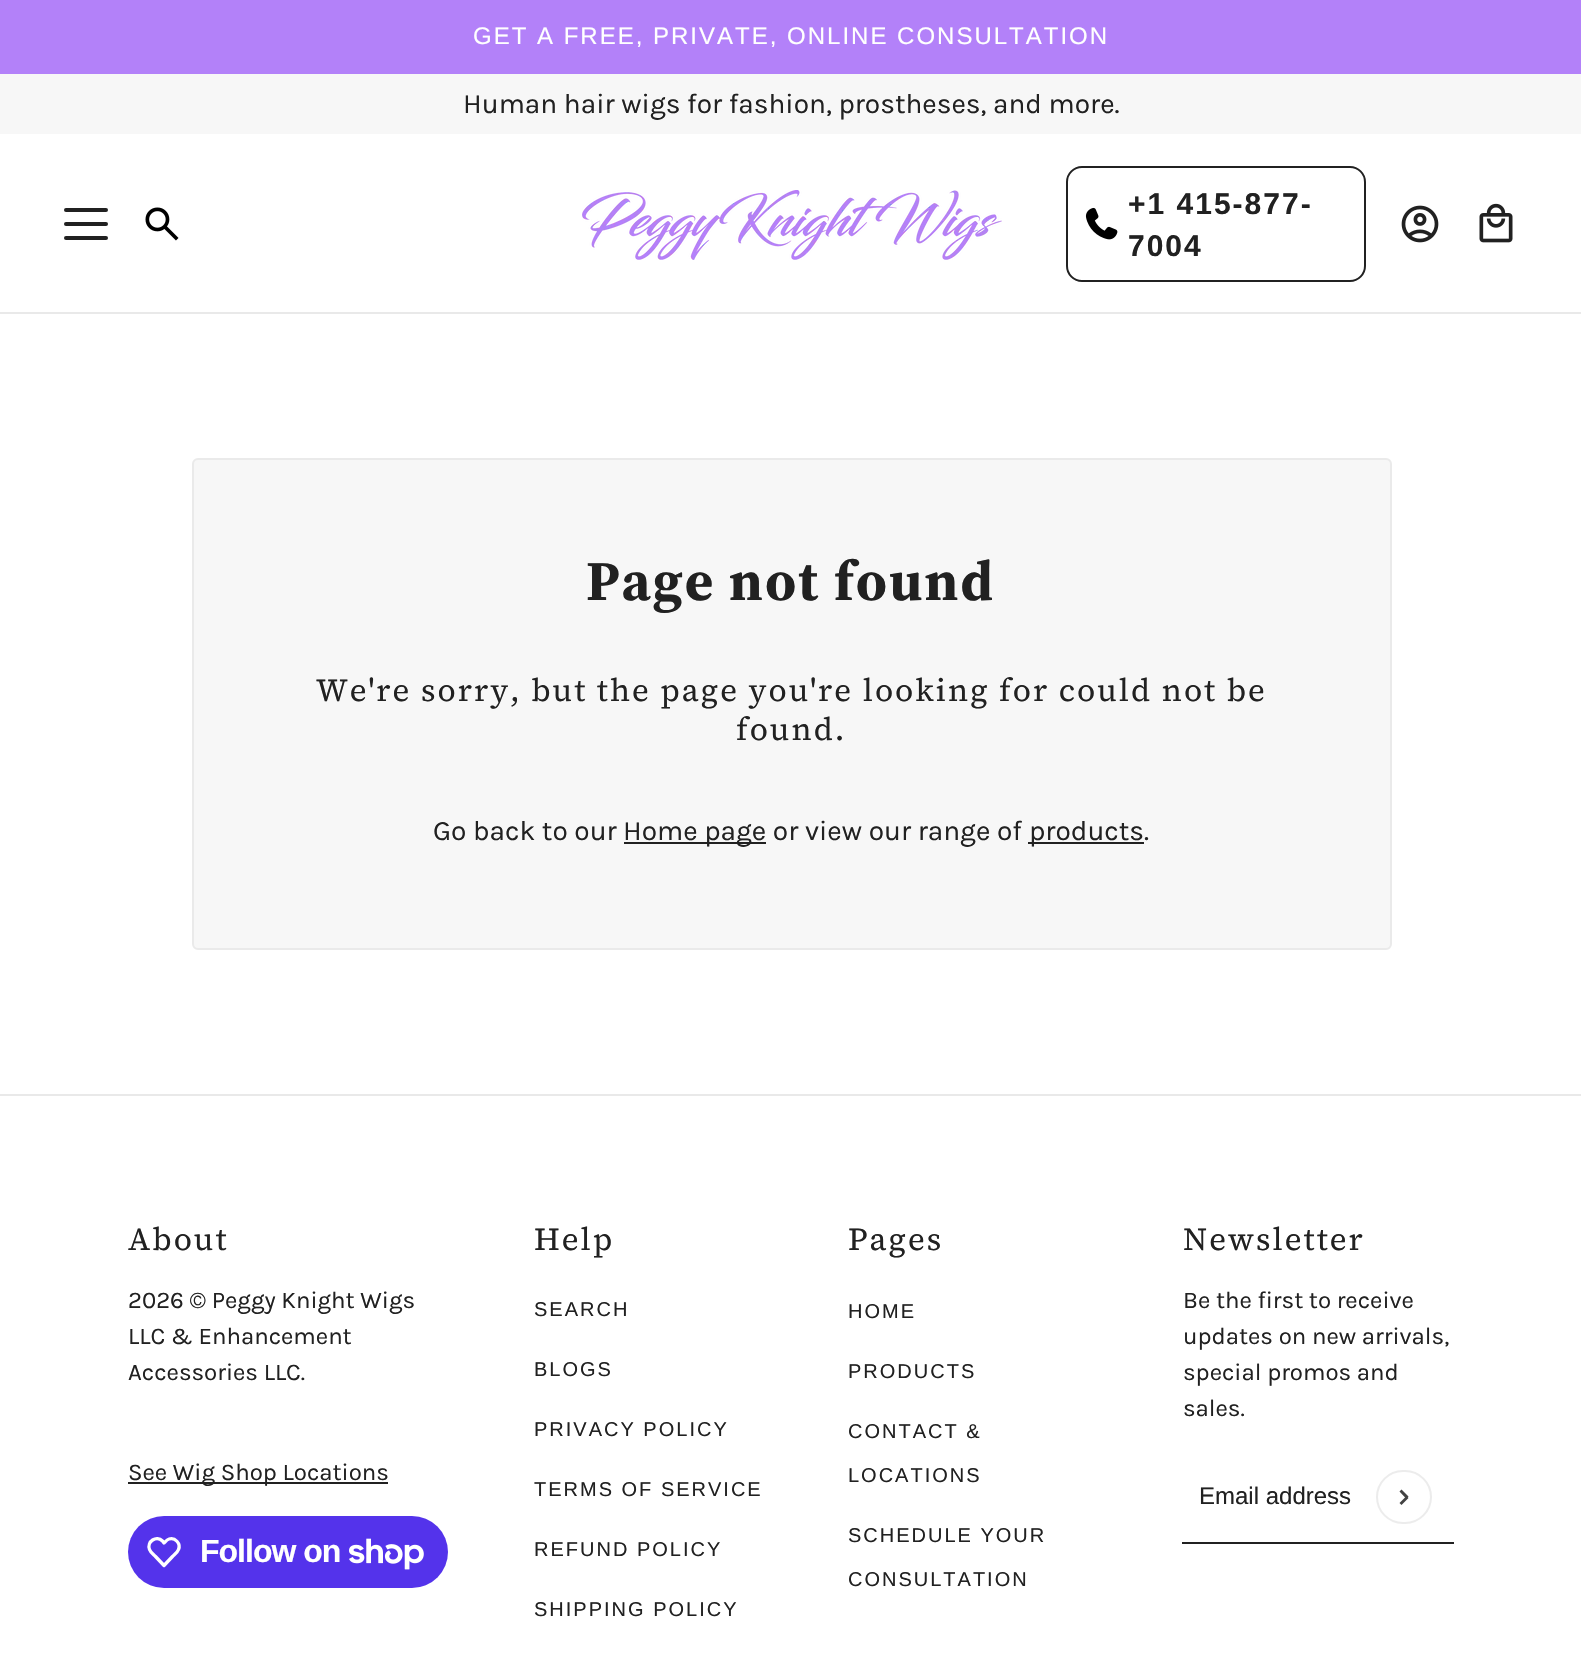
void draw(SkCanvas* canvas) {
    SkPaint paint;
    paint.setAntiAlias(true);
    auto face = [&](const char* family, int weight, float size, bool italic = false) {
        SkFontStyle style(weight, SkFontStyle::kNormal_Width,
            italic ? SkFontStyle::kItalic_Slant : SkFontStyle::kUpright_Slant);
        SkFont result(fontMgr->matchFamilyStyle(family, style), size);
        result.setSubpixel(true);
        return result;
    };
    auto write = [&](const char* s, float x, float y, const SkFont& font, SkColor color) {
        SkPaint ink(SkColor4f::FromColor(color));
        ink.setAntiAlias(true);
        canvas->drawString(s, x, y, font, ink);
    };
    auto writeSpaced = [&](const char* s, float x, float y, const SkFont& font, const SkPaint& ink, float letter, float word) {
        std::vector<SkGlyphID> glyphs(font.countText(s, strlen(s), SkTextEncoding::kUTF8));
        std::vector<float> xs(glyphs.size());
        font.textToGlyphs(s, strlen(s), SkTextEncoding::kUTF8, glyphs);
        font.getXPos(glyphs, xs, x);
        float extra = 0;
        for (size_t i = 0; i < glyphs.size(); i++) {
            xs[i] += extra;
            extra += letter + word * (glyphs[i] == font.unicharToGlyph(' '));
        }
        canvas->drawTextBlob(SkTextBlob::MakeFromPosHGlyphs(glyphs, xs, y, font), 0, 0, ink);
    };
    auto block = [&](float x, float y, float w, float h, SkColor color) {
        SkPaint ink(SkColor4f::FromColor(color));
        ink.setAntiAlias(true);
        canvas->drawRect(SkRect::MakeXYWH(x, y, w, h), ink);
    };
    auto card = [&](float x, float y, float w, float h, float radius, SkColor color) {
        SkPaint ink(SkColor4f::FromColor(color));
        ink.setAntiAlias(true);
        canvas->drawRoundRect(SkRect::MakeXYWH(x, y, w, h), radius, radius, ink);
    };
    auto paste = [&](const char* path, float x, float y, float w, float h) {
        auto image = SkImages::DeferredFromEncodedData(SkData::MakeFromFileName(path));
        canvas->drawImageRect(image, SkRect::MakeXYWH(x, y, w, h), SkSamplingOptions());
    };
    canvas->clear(SK_ColorWHITE);
    block(0, 0, 1581, 74, SkColorSetRGB(179, 129, 249));
    auto kFont1 = face("Liberation Sans", 400, 24);
    paint.setColor(SK_ColorWHITE);
    writeSpaced("GET A FREE, PRIVATE, ONLINE CONSULTATION", 473, 44, kFont1, paint, 2, 0);
    block(0, 74, 1581, 60, SkColorSetRGB(247, 247, 247));
    auto kFont2 = face("Karla", 400, 28);
    write("Human hair wigs for fashion, prostheses, and more.", 463, 113, kFont2, SkColorSetRGB(33, 33, 33));
    card(64, 208, 44, 4, 2, SkColorSetRGB(33, 33, 33));
    card(64, 222, 44, 4, 2, SkColorSetRGB(33, 33, 33));
    card(64, 236, 44, 4, 2, SkColorSetRGB(33, 33, 33));
    paste("pic1.png", 145, 207, 34, 34);
    paste("pic2.png", 582, 190, 420, 70);
    paint.setStyle(SkPaint::kStroke_Style);
    paint.setStrokeWidth(2);
    paint.setColor(SkColorSetRGB(33, 33, 33));
    canvas->drawRoundRect(SkRect::MakeXYWH(1067, 167, 298, 114), 15, 15, paint);
    auto kFont3 = face("Liberation Sans", 700, 30);
    paint.setStyle(SkPaint::kFill_Style);
    writeSpaced("+1 415-877-", 1128, 214, kFont3, paint, 2, 0);
    paste("pic3.png", 1085, 207, 33, 33);
    writeSpaced("7004", 1128, 256, kFont3, paint, 2, 0);
    paste("pic4.png", 1401, 205, 38, 38);
    paste("pic5.png", 1479, 203, 34, 40);
    block(0, 312, 1581, 2, SkColorSetRGB(233, 233, 233));
    paint.setColor(SkColorSetRGB(247, 247, 247));
    canvas->drawRoundRect(SkRect::MakeXYWH(193, 459, 1198, 490), 5, 5, paint);
    paint.setStyle(SkPaint::kStroke_Style);
    paint.setColor(SkColorSetRGB(234, 234, 234));
    canvas->drawRoundRect(SkRect::MakeXYWH(193, 459, 1198, 490), 5, 5, paint);
    auto kFont4 = face("Source Serif 4", 700, 56);
    paint.setStyle(SkPaint::kFill_Style);
    paint.setColor(SkColorSetRGB(33, 33, 33));
    writeSpaced("Page not found", 586, 600, kFont4, paint, 2, 0);
    auto kFont5 = face("Source Serif 4", 400, 32);
    writeSpaced("We're sorry, but the page you're looking for could not be", 316, 701, kFont5, paint, 2, 0);
    writeSpaced("found.", 736, 740, kFont5, paint, 2, 0);
    write("Go back to our", 433, 840, kFont2, SkColorSetRGB(33, 33, 33));
    block(624, 842, 142, 2, SkColorSetRGB(33, 33, 33));
    write("Home page or view our range of", 623, 840, kFont2, SkColorSetRGB(33, 33, 33));
    block(1028, 842, 116, 2, SkColorSetRGB(33, 33, 33));
    write("products.", 1029, 840, kFont2, SkColorSetRGB(33, 33, 33));
    block(0, 1094, 1581, 2, SkColorSetRGB(233, 233, 233));
    writeSpaced("About", 128, 1250, kFont5, paint, 2, 0);
    auto kFont6 = face("Karla", 400, 24);
    write("2026 © Peggy Knight Wigs", 128, 1308, kFont6, SkColorSetRGB(33, 33, 33));
    write("LLC & Enhancement", 128, 1344, kFont6, SkColorSetRGB(33, 33, 33));
    write("Accessories LLC.", 128, 1380, kFont6, SkColorSetRGB(33, 33, 33));
    block(128, 1482, 260, 2, SkColorSetRGB(33, 33, 33));
    write("See Wig Shop Locations", 128, 1480, kFont6, SkColorSetRGB(33, 33, 33));
    card(128, 1516, 320, 72, 36, SkColorSetRGB(84, 51, 235));
    paint.setStyle(SkPaint::kStroke_Style);
    paint.setStrokeWidth(3.3f);
    paint.setStrokeJoin(SkPaint::kRound_Join);
    paint.setColor(SK_ColorWHITE);
    canvas->drawPath(SkPathBuilder().moveTo(162.5f, 1541).lineTo(164, 1543).cubicTo(165.5f, 1541.5f, 167, 1539.5f, 169, 1539).cubicTo(175, 1537, 181, 1543.5f, 178.5f, 1549.5f).cubicTo(177.5f, 1552.5f, 174.5f, 1554.5f, 172.5f, 1556.5f).lineTo(164, 1565.5f).lineTo(155.5f, 1556.5f).cubicTo(153.5f, 1554.5f, 150.5f, 1552.5f, 149.5f, 1549.5f).cubicTo(146.5f, 1541.5f, 156.5f, 1535, 162.5f, 1541).close().detach(), paint);
    auto kFont7 = face("Liberation Sans", 700, 32);
    paint.setStyle(SkPaint::kFill_Style);
    writeSpaced("Follow on", 200, 1562, kFont7, paint, -1, 0);
    paste("pic6.png", 349, 1538, 75, 32);
    paint.setColor(SkColorSetRGB(33, 33, 33));
    writeSpaced("Help", 534, 1250, kFont5, paint, 2, 0);
    auto kFont8 = face("Liberation Sans", 400, 20);
    writeSpaced("SEARCH", 534, 1316, kFont8, paint, 2, 0);
    writeSpaced("BLOGS", 534, 1376, kFont8, paint, 2, 0);
    writeSpaced("PRIVACY POLICY", 534, 1436, kFont8, paint, 2, 0);
    writeSpaced("TERMS OF SERVICE", 534, 1496, kFont8, paint, 2, 0);
    writeSpaced("REFUND POLICY", 534, 1556, kFont8, paint, 2, 0);
    writeSpaced("SHIPPING POLICY", 534, 1616, kFont8, paint, 2, 0);
    writeSpaced("Pages", 848, 1250, kFont5, paint, 2, 0);
    writeSpaced("HOME", 848, 1318, kFont8, paint, 2, 0);
    writeSpaced("PRODUCTS", 848, 1378, kFont8, paint, 2, 0);
    writeSpaced("CONTACT &", 848, 1438, kFont8, paint, 2, 0);
    writeSpaced("LOCATIONS", 848, 1482, kFont8, paint, 2, 0);
    writeSpaced("SCHEDULE YOUR", 848, 1542, kFont8, paint, 2, 0);
    writeSpaced("CONSULTATION", 848, 1586, kFont8, paint, 2, 0);
    writeSpaced("Newsletter", 1183, 1250, kFont5, paint, 2, 0);
    write("Be the first to receive", 1183, 1308, kFont6, SkColorSetRGB(33, 33, 33));
    write("updates on new arrivals,", 1183, 1344, kFont6, SkColorSetRGB(33, 33, 33));
    write("special promos and", 1183, 1380, kFont6, SkColorSetRGB(33, 33, 33));
    write("sales.", 1183, 1416, kFont6, SkColorSetRGB(33, 33, 33));
    block(1182, 1542, 272, 2, SkColorSetRGB(33, 33, 33));
    write("Email address", 1199, 1504, kFont1, SkColorSetRGB(33, 33, 33));
    paint.setStyle(SkPaint::kStroke_Style);
    paint.setStrokeWidth(2);
    paint.setStrokeJoin(SkPaint::kMiter_Join);
    paint.setColor(SkColorSetRGB(236, 236, 236));
    canvas->drawRoundRect(SkRect::MakeXYWH(1377, 1471, 54, 52), 26, 26, paint);
    paint.setStyle(SkPaint::kFill_Style);
    paint.setColor(SkColorSetRGB(66, 66, 66));
    canvas->drawPath(SkPathBuilder().moveTo(1399.5f, 1503).lineTo(1406.5f, 1496).lineTo(1408.5f, 1498).lineTo(1401.5f, 1505).close().detach(), paint);
    canvas->drawPath(SkPathBuilder().moveTo(1401.5f, 1489.5f).lineTo(1408.5f, 1496.5f).lineTo(1406.5f, 1499).lineTo(1399.5f, 1491.5f).close().detach(), paint);
}
